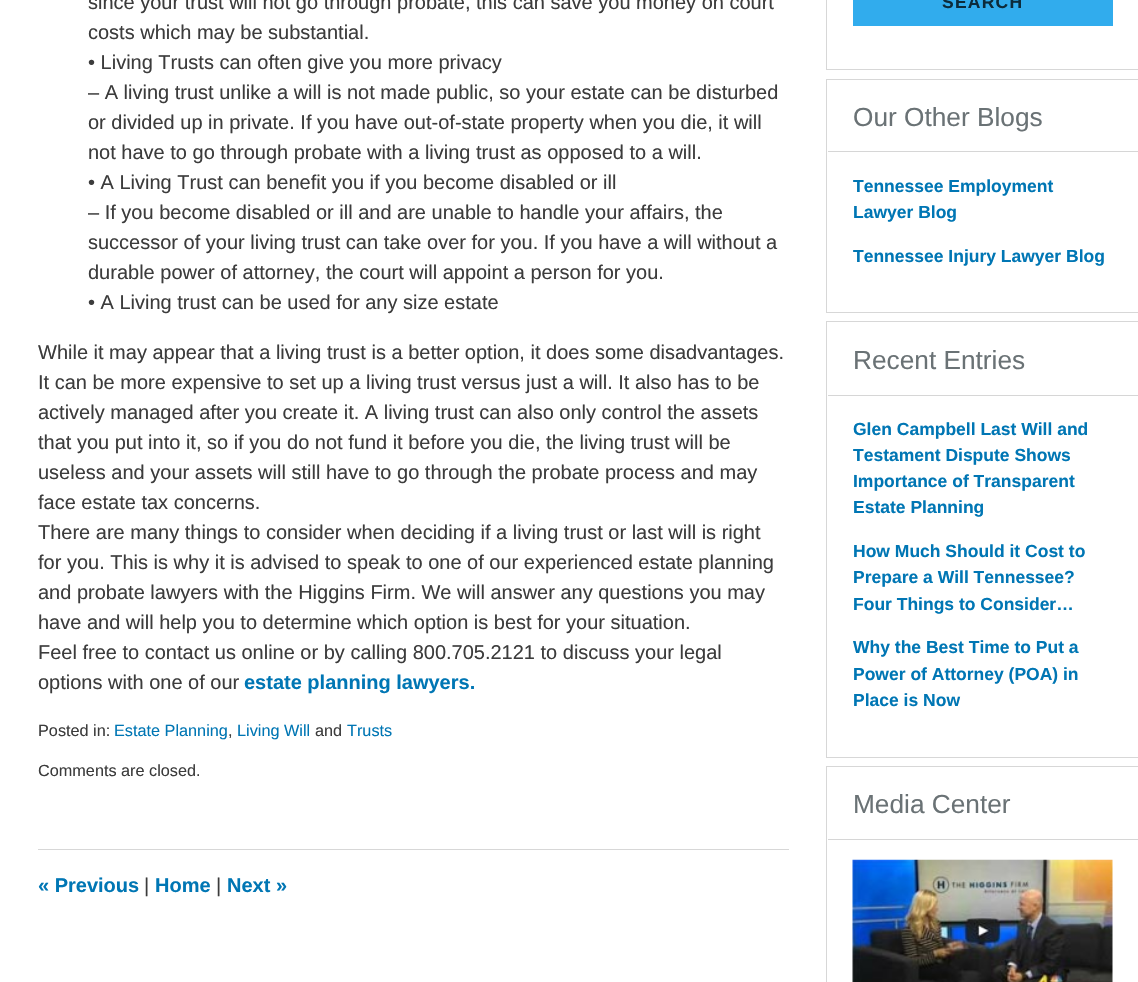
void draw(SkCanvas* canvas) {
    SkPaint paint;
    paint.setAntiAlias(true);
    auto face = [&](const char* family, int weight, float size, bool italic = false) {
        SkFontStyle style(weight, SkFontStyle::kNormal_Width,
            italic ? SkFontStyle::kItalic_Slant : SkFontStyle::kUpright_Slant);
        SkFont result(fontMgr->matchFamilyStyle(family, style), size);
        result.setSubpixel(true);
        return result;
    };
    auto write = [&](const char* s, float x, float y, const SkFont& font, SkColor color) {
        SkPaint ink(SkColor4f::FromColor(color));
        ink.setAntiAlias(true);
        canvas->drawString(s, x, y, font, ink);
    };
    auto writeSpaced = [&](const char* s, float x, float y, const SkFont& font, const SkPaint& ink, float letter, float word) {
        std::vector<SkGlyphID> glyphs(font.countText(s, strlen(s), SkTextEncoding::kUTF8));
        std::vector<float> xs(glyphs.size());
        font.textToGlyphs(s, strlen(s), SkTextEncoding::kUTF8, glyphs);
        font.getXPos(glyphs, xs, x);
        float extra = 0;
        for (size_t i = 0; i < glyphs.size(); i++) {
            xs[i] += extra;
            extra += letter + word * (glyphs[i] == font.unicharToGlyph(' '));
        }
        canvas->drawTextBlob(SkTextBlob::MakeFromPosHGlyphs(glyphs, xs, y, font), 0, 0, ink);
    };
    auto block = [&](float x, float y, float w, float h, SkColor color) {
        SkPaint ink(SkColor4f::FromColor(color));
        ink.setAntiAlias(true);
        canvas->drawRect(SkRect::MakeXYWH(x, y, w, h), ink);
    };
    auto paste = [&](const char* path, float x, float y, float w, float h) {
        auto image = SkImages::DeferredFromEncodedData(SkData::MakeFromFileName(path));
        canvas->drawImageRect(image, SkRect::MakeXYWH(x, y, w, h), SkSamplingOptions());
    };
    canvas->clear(SK_ColorWHITE);
    block(38, 849, 751, 1, SkColorSetRGB(215, 215, 215));
    auto kFont1 = face("Liberation Sans", 400, 20);
    write("since your trust will not go through probate, this can save you money on court", 88, 9, kFont1, SkColorSetRGB(60, 60, 60));
    write("costs which may be substantial.", 88, 39, kFont1, SkColorSetRGB(60, 60, 60));
    write("• Living Trusts can often give you more privacy", 88, 69, kFont1, SkColorSetRGB(60, 60, 60));
    write("– A living trust unlike a will is not made public, so your estate can be disturbed", 88, 99, kFont1, SkColorSetRGB(60, 60, 60));
    write("or divided up in private. If you have out-of-state property when you die, it will", 88, 129, kFont1, SkColorSetRGB(60, 60, 60));
    write("not have to go through probate with a living trust as opposed to a will.", 88, 159, kFont1, SkColorSetRGB(60, 60, 60));
    write("• A Living Trust can benefit you if you become disabled or ill", 88, 189, kFont1, SkColorSetRGB(60, 60, 60));
    write("– If you become disabled or ill and are unable to handle your affairs, the", 88, 219, kFont1, SkColorSetRGB(60, 60, 60));
    write("successor of your living trust can take over for you. If you have a will without a", 88, 249, kFont1, SkColorSetRGB(60, 60, 60));
    write("durable power of attorney, the court will appoint a person for you.", 88, 279, kFont1, SkColorSetRGB(60, 60, 60));
    write("• A Living trust can be used for any size estate", 88, 309, kFont1, SkColorSetRGB(60, 60, 60));
    write("While it may appear that a living trust is a better option, it does some disadvantages.", 38, 359, kFont1, SkColorSetRGB(60, 60, 60));
    write("It can be more expensive to set up a living trust versus just a will. It also has to be", 38, 389, kFont1, SkColorSetRGB(60, 60, 60));
    write("actively managed after you create it. A living trust can also only control the assets", 38, 419, kFont1, SkColorSetRGB(60, 60, 60));
    write("that you put into it, so if you do not fund it before you die, the living trust will be", 38, 449, kFont1, SkColorSetRGB(60, 60, 60));
    write("useless and your assets will still have to go through the probate process and may", 38, 479, kFont1, SkColorSetRGB(60, 60, 60));
    write("face estate tax concerns.", 38, 509, kFont1, SkColorSetRGB(60, 60, 60));
    write("There are many things to consider when deciding if a living trust or last will is right", 38, 539, kFont1, SkColorSetRGB(60, 60, 60));
    write("for you. This is why it is advised to speak to one of our experienced estate planning", 38, 569, kFont1, SkColorSetRGB(60, 60, 60));
    write("and probate lawyers with the Higgins Firm. We will answer any questions you may", 38, 599, kFont1, SkColorSetRGB(60, 60, 60));
    write("have and will help you to determine which option is best for your situation.", 38, 629, kFont1, SkColorSetRGB(60, 60, 60));
    write("Feel free to contact us online or by calling 800.705.2121 to discuss your legal", 38, 659, kFont1, SkColorSetRGB(60, 60, 60));
    write("options with one of our", 38, 689, kFont1, SkColorSetRGB(60, 60, 60));
    auto kFont2 = face("Liberation Sans", 700, 20);
    write("estate planning lawyers.", 244, 689, kFont2, SkColorSetRGB(0, 118, 180));
    auto kFont3 = face("Liberation Sans", 400, 16.25f);
    write("Posted in:", 38, 736, kFont3, SkColorSetRGB(60, 60, 60));
    write("Estate Planning", 114, 736, kFont3, SkColorSetRGB(0, 118, 180));
    write(",", 228, 736, kFont3, SkColorSetRGB(60, 60, 60));
    write("Living Will", 237, 736, kFont3, SkColorSetRGB(0, 118, 180));
    write("and", 315, 736, kFont3, SkColorSetRGB(60, 60, 60));
    write("Trusts", 347, 736, kFont3, SkColorSetRGB(0, 118, 180));
    write("Comments are closed.", 38, 776, kFont3, SkColorSetRGB(60, 60, 60));
    write("« Previous", 38, 892, kFont2, SkColorSetRGB(0, 118, 180));
    write("|", 144, 892, kFont1, SkColorSetRGB(60, 60, 60));
    write("Home", 155, 892, kFont2, SkColorSetRGB(0, 118, 180));
    write("|", 216, 892, kFont1, SkColorSetRGB(60, 60, 60));
    write("Next »", 227, 892, kFont2, SkColorSetRGB(0, 118, 180));
    paint.setStyle(SkPaint::kStroke_Style);
    paint.setStrokeWidth(1);
    paint.setColor(SkColorSetRGB(215, 215, 215));
    canvas->drawRect(SkRect::MakeXYWH(826.5f, -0.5f, 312, 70), paint);
    block(853, 0, 260, 26, SkColorSetRGB(49, 172, 237));
    auto kFont4 = face("Liberation Sans", 700, 17.5f);
    paint.setStyle(SkPaint::kFill_Style);
    paint.setColor(SkColorSetRGB(12, 43, 59));
    writeSpaced("SEARCH", 942, 8, kFont4, paint, 1.25f, 0);
    paint.setStyle(SkPaint::kStroke_Style);
    paint.setColor(SkColorSetRGB(215, 215, 215));
    canvas->drawRect(SkRect::MakeXYWH(826.5f, 79.5f, 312, 233), paint);
    block(828, 151, 310, 1, SkColorSetRGB(214, 214, 214));
    auto kFont5 = face("Liberation Sans", 400, 26.25f);
    write("Our Other Blogs", 853, 126, kFont5, SkColorSetRGB(106, 114, 117));
    write("Tennessee Employment", 853, 192, kFont4, SkColorSetRGB(0, 118, 180));
    write("Lawyer Blog", 853, 218, kFont4, SkColorSetRGB(0, 118, 180));
    write("Tennessee Injury Lawyer Blog", 853, 262, kFont4, SkColorSetRGB(0, 118, 180));
    canvas->drawRect(SkRect::MakeXYWH(826.5f, 321.5f, 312, 436), paint);
    block(828, 395, 310, 1, SkColorSetRGB(214, 214, 214));
    write("Recent Entries", 853, 369, kFont5, SkColorSetRGB(106, 114, 117));
    write("Glen Campbell Last Will and", 853, 435, kFont4, SkColorSetRGB(0, 118, 180));
    write("Testament Dispute Shows", 853, 461, kFont4, SkColorSetRGB(0, 118, 180));
    write("Importance of Transparent", 853, 487, kFont4, SkColorSetRGB(0, 118, 180));
    write("Estate Planning", 853, 513, kFont4, SkColorSetRGB(0, 118, 180));
    write("How Much Should it Cost to", 853, 557, kFont4, SkColorSetRGB(0, 118, 180));
    write("Prepare a Will Tennessee?", 853, 583, kFont4, SkColorSetRGB(0, 118, 180));
    write("Four Things to Consider…", 853, 610, kFont4, SkColorSetRGB(0, 118, 180));
    write("Why the Best Time to Put a", 853, 653, kFont4, SkColorSetRGB(0, 118, 180));
    write("Power of Attorney (POA) in", 853, 680, kFont4, SkColorSetRGB(0, 118, 180));
    write("Place is Now", 853, 706, kFont4, SkColorSetRGB(0, 118, 180));
    canvas->drawRect(SkRect::MakeXYWH(826.5f, 766.5f, 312, 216), paint);
    block(828, 839, 310, 1, SkColorSetRGB(214, 214, 214));
    write("Media Center", 853, 813, kFont5, SkColorSetRGB(106, 114, 117));
    paste("pic1.png", 852, 859, 261, 123);
}
